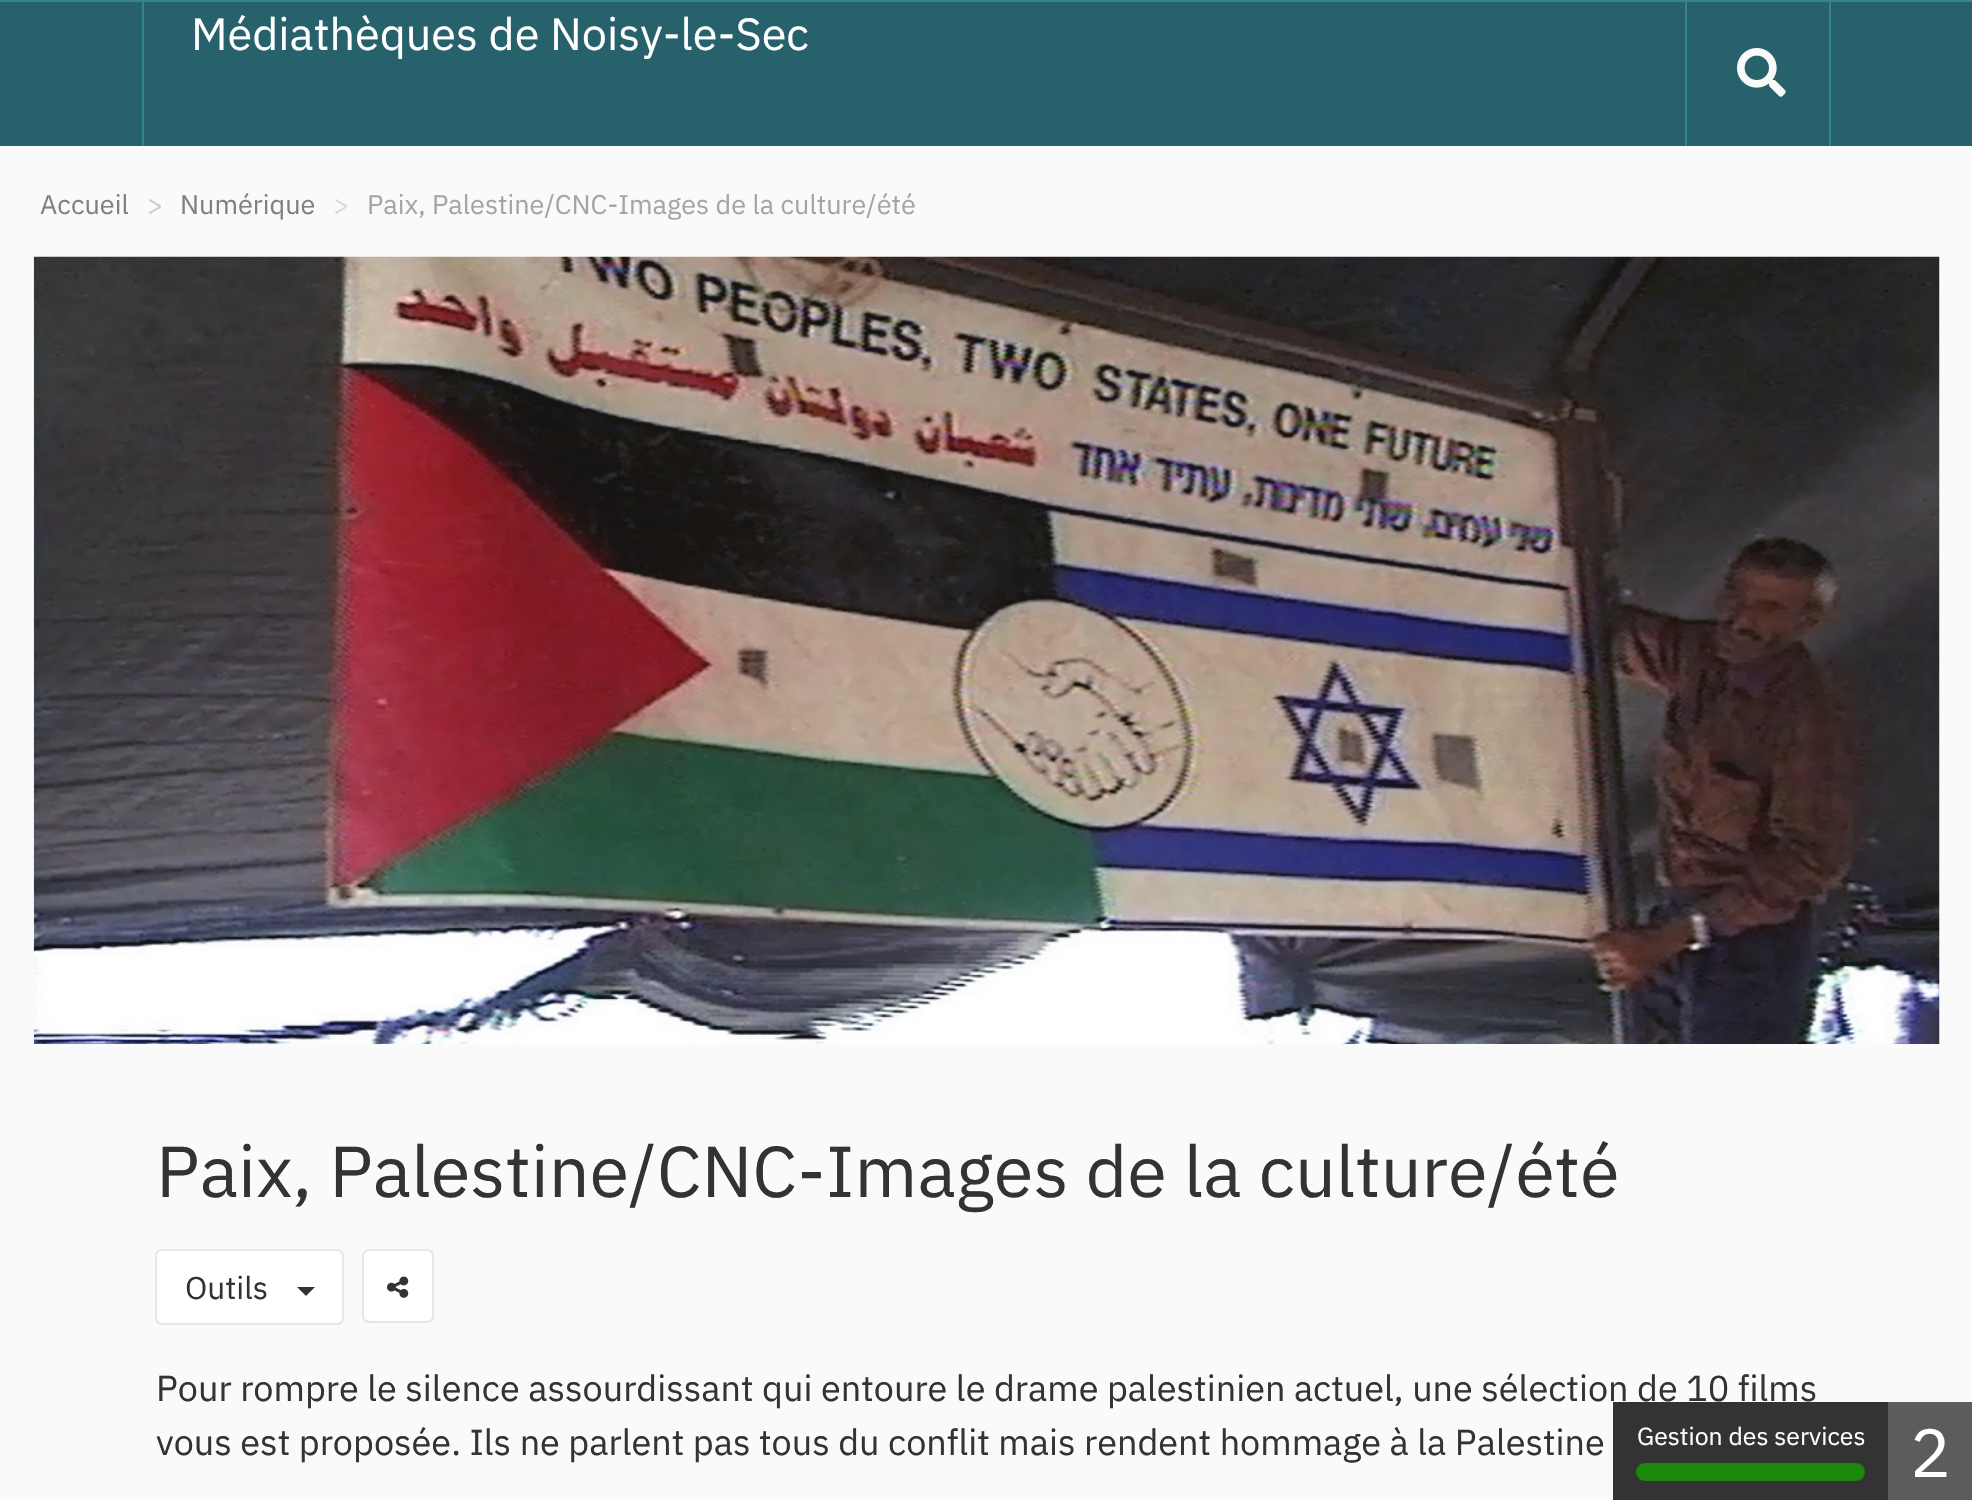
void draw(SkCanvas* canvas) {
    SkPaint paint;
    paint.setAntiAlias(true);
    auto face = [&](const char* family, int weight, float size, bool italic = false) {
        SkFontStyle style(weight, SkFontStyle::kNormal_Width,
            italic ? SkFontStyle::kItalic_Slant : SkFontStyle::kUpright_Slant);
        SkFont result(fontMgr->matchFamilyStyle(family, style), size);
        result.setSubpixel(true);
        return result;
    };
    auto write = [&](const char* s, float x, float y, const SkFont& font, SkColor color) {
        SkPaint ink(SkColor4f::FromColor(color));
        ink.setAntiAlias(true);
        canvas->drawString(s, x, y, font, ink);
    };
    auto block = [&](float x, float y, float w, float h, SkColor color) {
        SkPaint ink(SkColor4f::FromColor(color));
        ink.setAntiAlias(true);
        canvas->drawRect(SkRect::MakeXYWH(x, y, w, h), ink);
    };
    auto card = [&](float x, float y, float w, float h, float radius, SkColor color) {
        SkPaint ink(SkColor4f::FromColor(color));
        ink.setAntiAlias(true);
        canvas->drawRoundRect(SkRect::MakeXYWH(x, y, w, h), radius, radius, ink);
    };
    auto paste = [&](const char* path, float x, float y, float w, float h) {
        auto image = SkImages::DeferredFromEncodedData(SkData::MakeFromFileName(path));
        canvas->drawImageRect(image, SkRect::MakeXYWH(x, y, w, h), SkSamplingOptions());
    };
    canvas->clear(SkColorSetRGB(250, 250, 250));
    block(0, 2, 1972, 144, SkColorSetRGB(39, 97, 107));
    block(0, 0, 1972, 2, SkColorSetRGB(53, 131, 144));
    block(142, 2, 2, 144, SkColorSetRGB(53, 131, 144));
    auto kFont1 = face("IBM Plex Sans", 400, 45);
    write("Médiathèques de Noisy-le-Sec", 191, 50, kFont1, SK_ColorWHITE);
    block(1685, 2, 2, 144, SkColorSetRGB(53, 131, 144));
    paste("pic1.png", 1737, 48, 49, 49);
    block(1829, 2, 2, 144, SkColorSetRGB(53, 131, 144));
    auto kFont2 = face("IBM Plex Sans", 400, 27);
    write("Accueil", 40, 214, kFont2, SkColorSetRGB(128, 128, 128));
    write(">", 147, 214, kFont2, SkColorSetRGB(204, 204, 204));
    write("Numérique", 180, 214, kFont2, SkColorSetRGB(128, 128, 128));
    write(">", 333, 214, kFont2, SkColorSetRGB(218, 218, 218));
    write("Paix, Palestine/CNC-Images de la culture/été", 367, 214, kFont2, SkColorSetRGB(165, 165, 165));
    paste("pic2.png", 33, 256, 1907, 788);
    auto kFont3 = face("IBM Plex Sans", 400, 72);
    write("Paix, Palestine/CNC-Images de la culture/été", 156, 1197, kFont3, SkColorSetRGB(51, 51, 51));
    paint.setColor(SK_ColorWHITE);
    canvas->drawRoundRect(SkRect::MakeXYWH(156, 1250, 187, 74), 6, 6, paint);
    paint.setStyle(SkPaint::kStroke_Style);
    paint.setStrokeWidth(2);
    paint.setColor(SkColorSetRGB(230, 230, 230));
    canvas->drawRoundRect(SkRect::MakeXYWH(156, 1250, 187, 74), 6, 6, paint);
    auto kFont4 = face("IBM Plex Sans", 400, 31.5f);
    write("Outils", 185, 1299, kFont4, SkColorSetRGB(51, 51, 51));
    paint.setStyle(SkPaint::kFill_Style);
    paint.setColor(SkColorSetRGB(51, 51, 51));
    canvas->drawPath(SkPathBuilder().moveTo(297, 1287).lineTo(315, 1287).lineTo(306, 1296).close().detach(), paint);
    paint.setColor(SK_ColorWHITE);
    canvas->drawRoundRect(SkRect::MakeXYWH(363, 1250, 70, 72), 6, 6, paint);
    paint.setStyle(SkPaint::kStroke_Style);
    paint.setColor(SkColorSetRGB(230, 230, 230));
    canvas->drawRoundRect(SkRect::MakeXYWH(363, 1250, 70, 72), 6, 6, paint);
    paste("pic3.png", 387, 1276, 22, 22);
    auto kFont5 = face("IBM Plex Sans", 400, 36);
    write("Pour rompre le silence assourdissant qui entoure le drame palestinien actuel, une sélection de 10 films", 156, 1401, kFont5, SkColorSetRGB(51, 51, 51));
    write("vous est proposée. Ils ne parlent pas tous du conflit mais rendent hommage à la Palestine", 156, 1455, kFont5, SkColorSetRGB(51, 51, 51));
    block(1613, 1402, 275, 98, SkColorSetRGB(51, 51, 51));
    auto kFont6 = face("IBM Plex Sans", 400, 24.75f);
    write("Gestion des services", 1637, 1445, kFont6, SK_ColorWHITE);
    card(1636, 1463, 229, 18, 9, SkColorSetRGB(27, 135, 11));
    block(1888, 1402, 84, 98, SkColorSetRGB(92, 92, 92));
    auto kFont7 = face("IBM Plex Sans", 400, 68);
    write("2", 1910, 1477, kFont7, SK_ColorWHITE);
}
